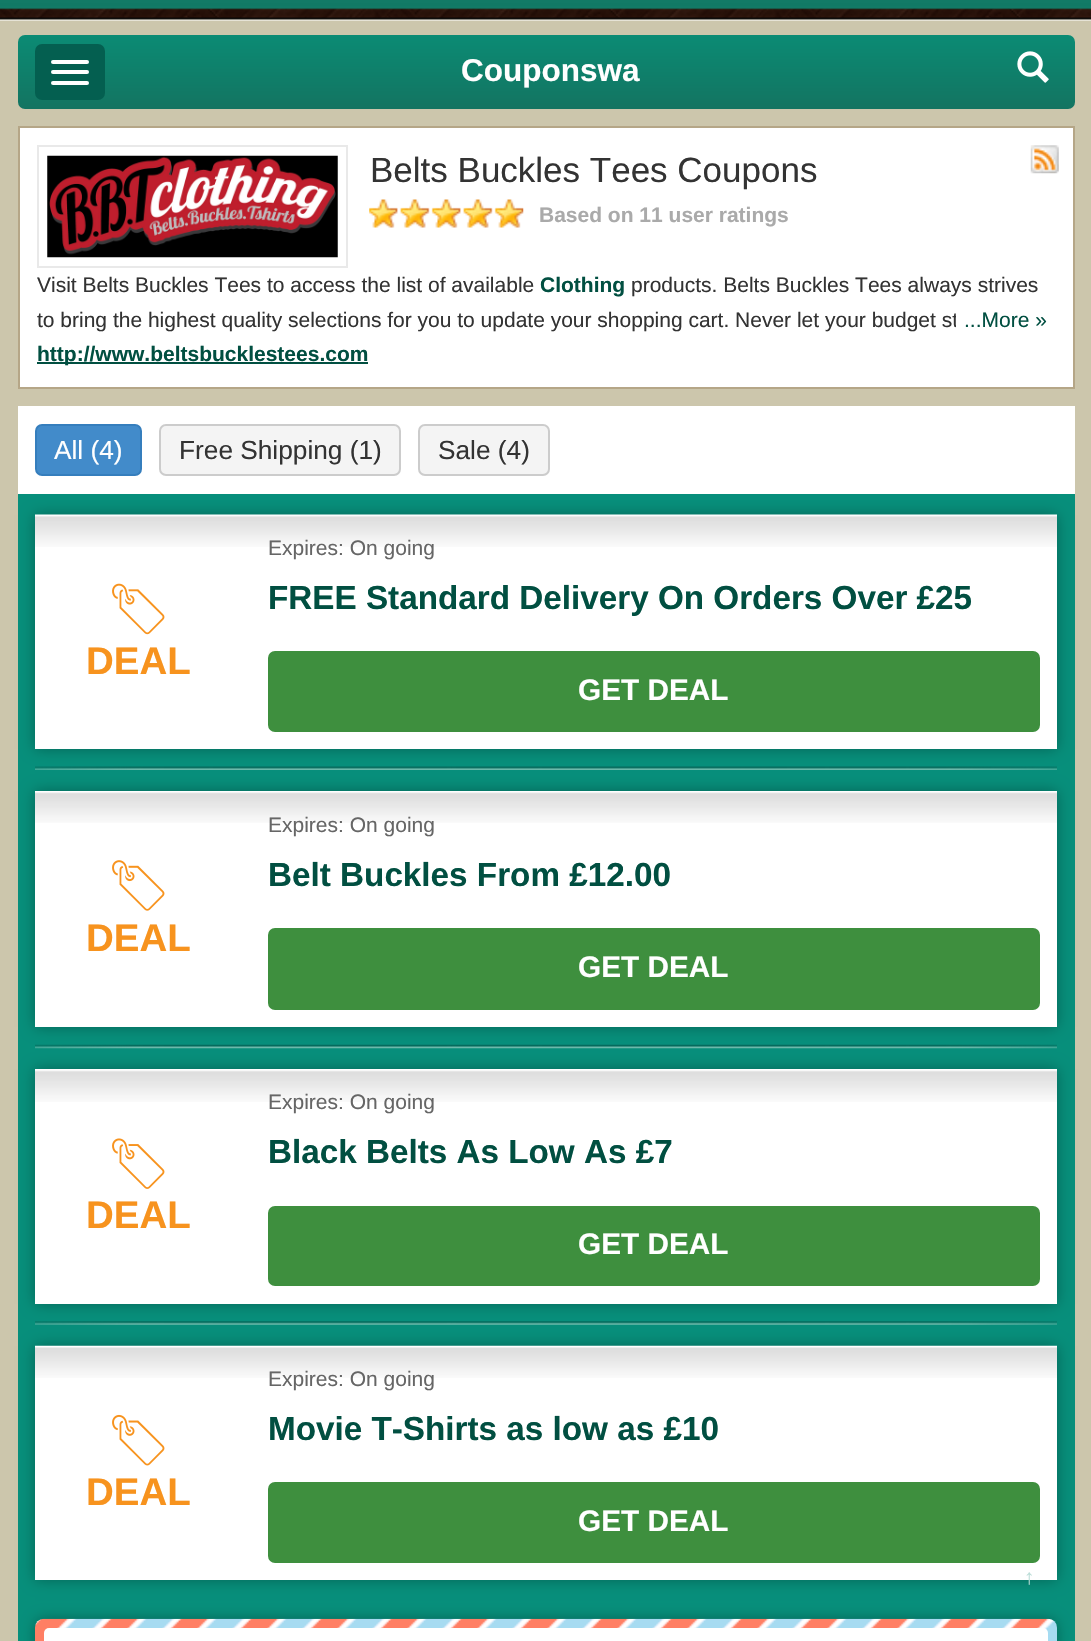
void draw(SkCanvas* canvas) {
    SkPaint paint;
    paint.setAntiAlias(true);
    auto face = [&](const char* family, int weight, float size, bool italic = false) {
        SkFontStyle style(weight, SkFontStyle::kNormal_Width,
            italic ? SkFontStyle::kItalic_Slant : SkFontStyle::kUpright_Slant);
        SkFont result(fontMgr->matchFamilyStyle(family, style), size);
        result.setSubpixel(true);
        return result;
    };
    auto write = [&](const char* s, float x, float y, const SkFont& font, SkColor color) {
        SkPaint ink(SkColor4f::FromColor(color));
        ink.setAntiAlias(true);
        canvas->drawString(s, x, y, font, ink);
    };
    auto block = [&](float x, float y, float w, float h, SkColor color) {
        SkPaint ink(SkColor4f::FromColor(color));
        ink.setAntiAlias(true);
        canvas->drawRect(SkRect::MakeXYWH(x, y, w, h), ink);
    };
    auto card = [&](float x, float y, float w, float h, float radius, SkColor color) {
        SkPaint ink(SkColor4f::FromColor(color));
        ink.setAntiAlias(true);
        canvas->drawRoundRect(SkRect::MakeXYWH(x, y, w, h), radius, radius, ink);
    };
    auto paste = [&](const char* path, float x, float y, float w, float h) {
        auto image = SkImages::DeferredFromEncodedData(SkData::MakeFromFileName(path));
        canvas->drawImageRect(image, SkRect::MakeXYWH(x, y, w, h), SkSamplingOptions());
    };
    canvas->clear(SK_ColorWHITE);
    paste("pic1.png", 0, 8, 1091, 10);
    paste("pic2.png", 0, 0, 1091, 18);
    block(0, 21, 1091, 1620, SkColorSetRGB(204, 198, 172));
    paste("pic3.png", 0, 17, 1091, 4);
    {
        const SkColor colors[] = {SkColorSetRGB(11, 139, 116), SkColorSetRGB(19, 116, 97)};
        const float stops[] = {0, 1};
        const SkPoint ends[] = {{546, 35}, {546, 109}};
        paint.setShader(SkGradientShader::MakeLinear(ends, colors, stops, 2, SkTileMode::kClamp));
        paint.setAlpha(255);
    }
    canvas->drawRoundRect(SkRect::MakeXYWH(18, 35, 1057, 74), 7, 7, paint);
    card(35, 44, 70, 56, 7, SkColorSetRGB(4, 95, 80));
    card(51, 60, 38, 4, 2, SK_ColorWHITE);
    card(51, 70, 38, 4, 2, SK_ColorWHITE);
    card(51, 81, 38, 4, 2, SK_ColorWHITE);
    auto kFont1 = face("Liberation Sans", 700, 31.5f);
    write("Couponswa", 461, 81, kFont1, SK_ColorWHITE);
    paste("pic4.png", 1017, 51, 32, 32);
    paint.setShader(nullptr);
    paint.setColor(SK_ColorWHITE);
    canvas->drawRect(SkRect::MakeXYWH(19, 127, 1055, 261), paint);
    paint.setStyle(SkPaint::kStroke_Style);
    paint.setStrokeWidth(2);
    paint.setColor(SkColorSetRGB(181, 166, 135));
    canvas->drawRect(SkRect::MakeXYWH(19, 127, 1055, 261), paint);
    paint.setColor(SkColorSetRGB(233, 233, 233));
    canvas->drawRect(SkRect::MakeXYWH(38, 146, 309, 121), paint);
    paste("pic5.png", 47, 155, 291, 103);
    auto kFont2 = face("Liberation Sans", 400, 35);
    write("Belts Buckles Tees Coupons", 370, 182, kFont2, SkColorSetRGB(51, 51, 51));
    paste("pic6.png", 1030, 145, 29, 29);
    paste("pic7.png", 369, 199, 155, 29);
    auto kFont3 = face("Liberation Sans", 700, 21);
    write("Based on 11 user ratings", 539, 222, kFont3, SkColorSetRGB(170, 170, 170));
    auto kFont4 = face("Liberation Sans", 400, 21);
    write("Visit Belts Buckles Tees to access the list of available", 37, 292, kFont4, SkColorSetRGB(51, 51, 51));
    write("Clothing", 540, 292, kFont3, SkColorSetRGB(1, 79, 65));
    write("products. Belts Buckles Tees always strives", 631, 292, kFont4, SkColorSetRGB(51, 51, 51));
    write("to bring the highest quality selections for you to update your shopping cart. Never let your budget st", 37, 327, kFont4, SkColorSetRGB(51, 51, 51));
    block(956, 315, 2, 13, SK_ColorWHITE);
    write("...More »", 964, 327, kFont4, SkColorSetRGB(1, 79, 65));
    block(37, 362, 331, 2, SkColorSetRGB(1, 79, 65));
    write("http://www.beltsbucklestees.com", 37, 361, kFont3, SkColorSetRGB(1, 79, 65));
    block(18, 494, 1057, 1147, SkColorSetRGB(7, 143, 123));
    paste("pic8.png", 35, 766, 1022, 4);
    paint.setStyle(SkPaint::kFill_Style);
    paint.setColor(SkColorSetARGB(77, 0, 0, 0));
    paint.setMaskFilter(SkMaskFilter::MakeBlur(kNormal_SkBlurStyle, 7));
    canvas->drawRect(SkRect::MakeXYWH(35, 515, 1022, 234), paint);
    paint.setMaskFilter(nullptr);
    block(18, 406, 1057, 88, SK_ColorWHITE);
    paint.setColor(SkColorSetRGB(66, 139, 202));
    canvas->drawRoundRect(SkRect::MakeXYWH(36, 425, 105, 50), 6, 6, paint);
    paint.setStyle(SkPaint::kStroke_Style);
    paint.setColor(SkColorSetRGB(53, 126, 189));
    canvas->drawRoundRect(SkRect::MakeXYWH(36, 425, 105, 50), 6, 6, paint);
    auto kFont5 = face("Liberation Sans", 400, 26.25f);
    write("All (4)", 54, 459, kFont5, SK_ColorWHITE);
    paint.setStyle(SkPaint::kFill_Style);
    paint.setColor(SkColorSetRGB(244, 244, 244));
    canvas->drawRoundRect(SkRect::MakeXYWH(160, 425, 240, 50), 6, 6, paint);
    paint.setStyle(SkPaint::kStroke_Style);
    paint.setColor(SkColorSetRGB(204, 204, 204));
    canvas->drawRoundRect(SkRect::MakeXYWH(160, 425, 240, 50), 6, 6, paint);
    write("Free Shipping (1)", 179, 459, kFont5, SkColorSetRGB(51, 51, 51));
    paint.setStyle(SkPaint::kFill_Style);
    paint.setColor(SkColorSetRGB(244, 244, 244));
    canvas->drawRoundRect(SkRect::MakeXYWH(419, 425, 130, 50), 6, 6, paint);
    paint.setStyle(SkPaint::kStroke_Style);
    paint.setColor(SkColorSetRGB(204, 204, 204));
    canvas->drawRoundRect(SkRect::MakeXYWH(419, 425, 130, 50), 6, 6, paint);
    write("Sale (4)", 438, 459, kFont5, SkColorSetRGB(51, 51, 51));
    block(35, 547, 1022, 202, SK_ColorWHITE);
    paste("pic9.png", 35, 514, 1022, 33);
    paste("pic10.png", 112, 583, 53, 52);
    auto kFont6 = face("Liberation Sans", 700, 38.5f);
    write("DEAL", 86, 674, kFont6, SkColorSetRGB(247, 147, 30));
    write("Expires: On going", 268, 555, kFont4, SkColorSetRGB(102, 102, 102));
    auto kFont7 = face("Liberation Sans", 700, 33.25f);
    write("FREE Standard Delivery On Orders Over £25", 268, 609, kFont7, SkColorSetRGB(1, 79, 65));
    paint.setStyle(SkPaint::kFill_Style);
    paint.setColor(SkColorSetRGB(62, 143, 62));
    canvas->drawRoundRect(SkRect::MakeXYWH(269, 652, 770, 79), 6, 6, paint);
    paint.setStyle(SkPaint::kStroke_Style);
    canvas->drawRoundRect(SkRect::MakeXYWH(269, 652, 770, 79), 6, 6, paint);
    auto kFont8 = face("Liberation Sans", 700, 29.75f);
    write("GET DEAL", 578, 700, kFont8, SK_ColorWHITE);
    paste("pic11.png", 35, 1044, 1022, 5);
    paint.setStyle(SkPaint::kFill_Style);
    paint.setColor(SkColorSetARGB(77, 0, 0, 0));
    paint.setMaskFilter(SkMaskFilter::MakeBlur(kNormal_SkBlurStyle, 7));
    canvas->drawRect(SkRect::MakeXYWH(35, 791, 1022, 236), paint);
    paint.setMaskFilter(nullptr);
    block(35, 791, 1022, 236, SK_ColorWHITE);
    paste("pic12.png", 35, 792, 1022, 31);
    paste("pic13.png", 112, 860, 53, 51);
    write("DEAL", 86, 951, kFont6, SkColorSetRGB(247, 147, 30));
    write("Expires: On going", 268, 832, kFont4, SkColorSetRGB(102, 102, 102));
    write("Belt Buckles From £12.00", 268, 886, kFont7, SkColorSetRGB(1, 79, 65));
    paint.setColor(SkColorSetRGB(62, 143, 62));
    canvas->drawRoundRect(SkRect::MakeXYWH(269, 929, 770, 80), 6, 6, paint);
    paint.setStyle(SkPaint::kStroke_Style);
    canvas->drawRoundRect(SkRect::MakeXYWH(269, 929, 770, 80), 6, 6, paint);
    write("GET DEAL", 578, 977, kFont8, SK_ColorWHITE);
    paste("pic14.png", 35, 1321, 1022, 4);
    paint.setStyle(SkPaint::kFill_Style);
    paint.setColor(SkColorSetARGB(77, 0, 0, 0));
    paint.setMaskFilter(SkMaskFilter::MakeBlur(kNormal_SkBlurStyle, 7));
    canvas->drawRect(SkRect::MakeXYWH(35, 1069, 1022, 235), paint);
    paint.setMaskFilter(nullptr);
    block(35, 1069, 1022, 235, SK_ColorWHITE);
    paste("pic15.png", 35, 1070, 1022, 32);
    paste("pic16.png", 112, 1138, 53, 51);
    write("DEAL", 86, 1228, kFont6, SkColorSetRGB(247, 147, 30));
    write("Expires: On going", 268, 1109, kFont4, SkColorSetRGB(102, 102, 102));
    write("Black Belts As Low As £7", 268, 1163, kFont7, SkColorSetRGB(1, 79, 65));
    paint.setColor(SkColorSetRGB(62, 143, 62));
    canvas->drawRoundRect(SkRect::MakeXYWH(269, 1207, 770, 78), 6, 6, paint);
    paint.setStyle(SkPaint::kStroke_Style);
    canvas->drawRoundRect(SkRect::MakeXYWH(269, 1207, 770, 78), 6, 6, paint);
    write("GET DEAL", 578, 1254, kFont8, SK_ColorWHITE);
    paint.setStyle(SkPaint::kFill_Style);
    paint.setColor(SkColorSetARGB(77, 0, 0, 0));
    paint.setMaskFilter(SkMaskFilter::MakeBlur(kNormal_SkBlurStyle, 7));
    canvas->drawRect(SkRect::MakeXYWH(35, 1346, 1022, 234), paint);
    paint.setMaskFilter(nullptr);
    block(35, 1378, 1022, 202, SK_ColorWHITE);
    paste("pic17.png", 35, 1345, 1022, 33);
    paste("pic18.png", 112, 1414, 53, 52);
    write("DEAL", 86, 1505, kFont6, SkColorSetRGB(247, 147, 30));
    write("Expires: On going", 268, 1386, kFont4, SkColorSetRGB(102, 102, 102));
    write("Movie T-Shirts as low as £10", 268, 1440, kFont7, SkColorSetRGB(1, 79, 65));
    paint.setColor(SkColorSetRGB(62, 143, 62));
    canvas->drawRoundRect(SkRect::MakeXYWH(269, 1483, 770, 79), 6, 6, paint);
    paint.setStyle(SkPaint::kStroke_Style);
    canvas->drawRoundRect(SkRect::MakeXYWH(269, 1483, 770, 79), 6, 6, paint);
    write("GET DEAL", 578, 1531, kFont8, SK_ColorWHITE);
    paint.setStyle(SkPaint::kFill_Style);
    paint.setColor(SkColorSetARGB(77, 0, 0, 0));
    paint.setMaskFilter(SkMaskFilter::MakeBlur(kNormal_SkBlurStyle, 7));
    canvas->drawRoundRect(SkRect::MakeXYWH(35, 1619, 1022, 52), 9, 9, paint);
    paint.setMaskFilter(nullptr);
    paste("pic19.png", 35, 1618, 1022, 23);
    card(44, 1628, 1004, 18, 5, SK_ColorWHITE);
    write("↑", 1024, 1584, kFont4, SkColorSetRGB(186, 220, 215));
}
